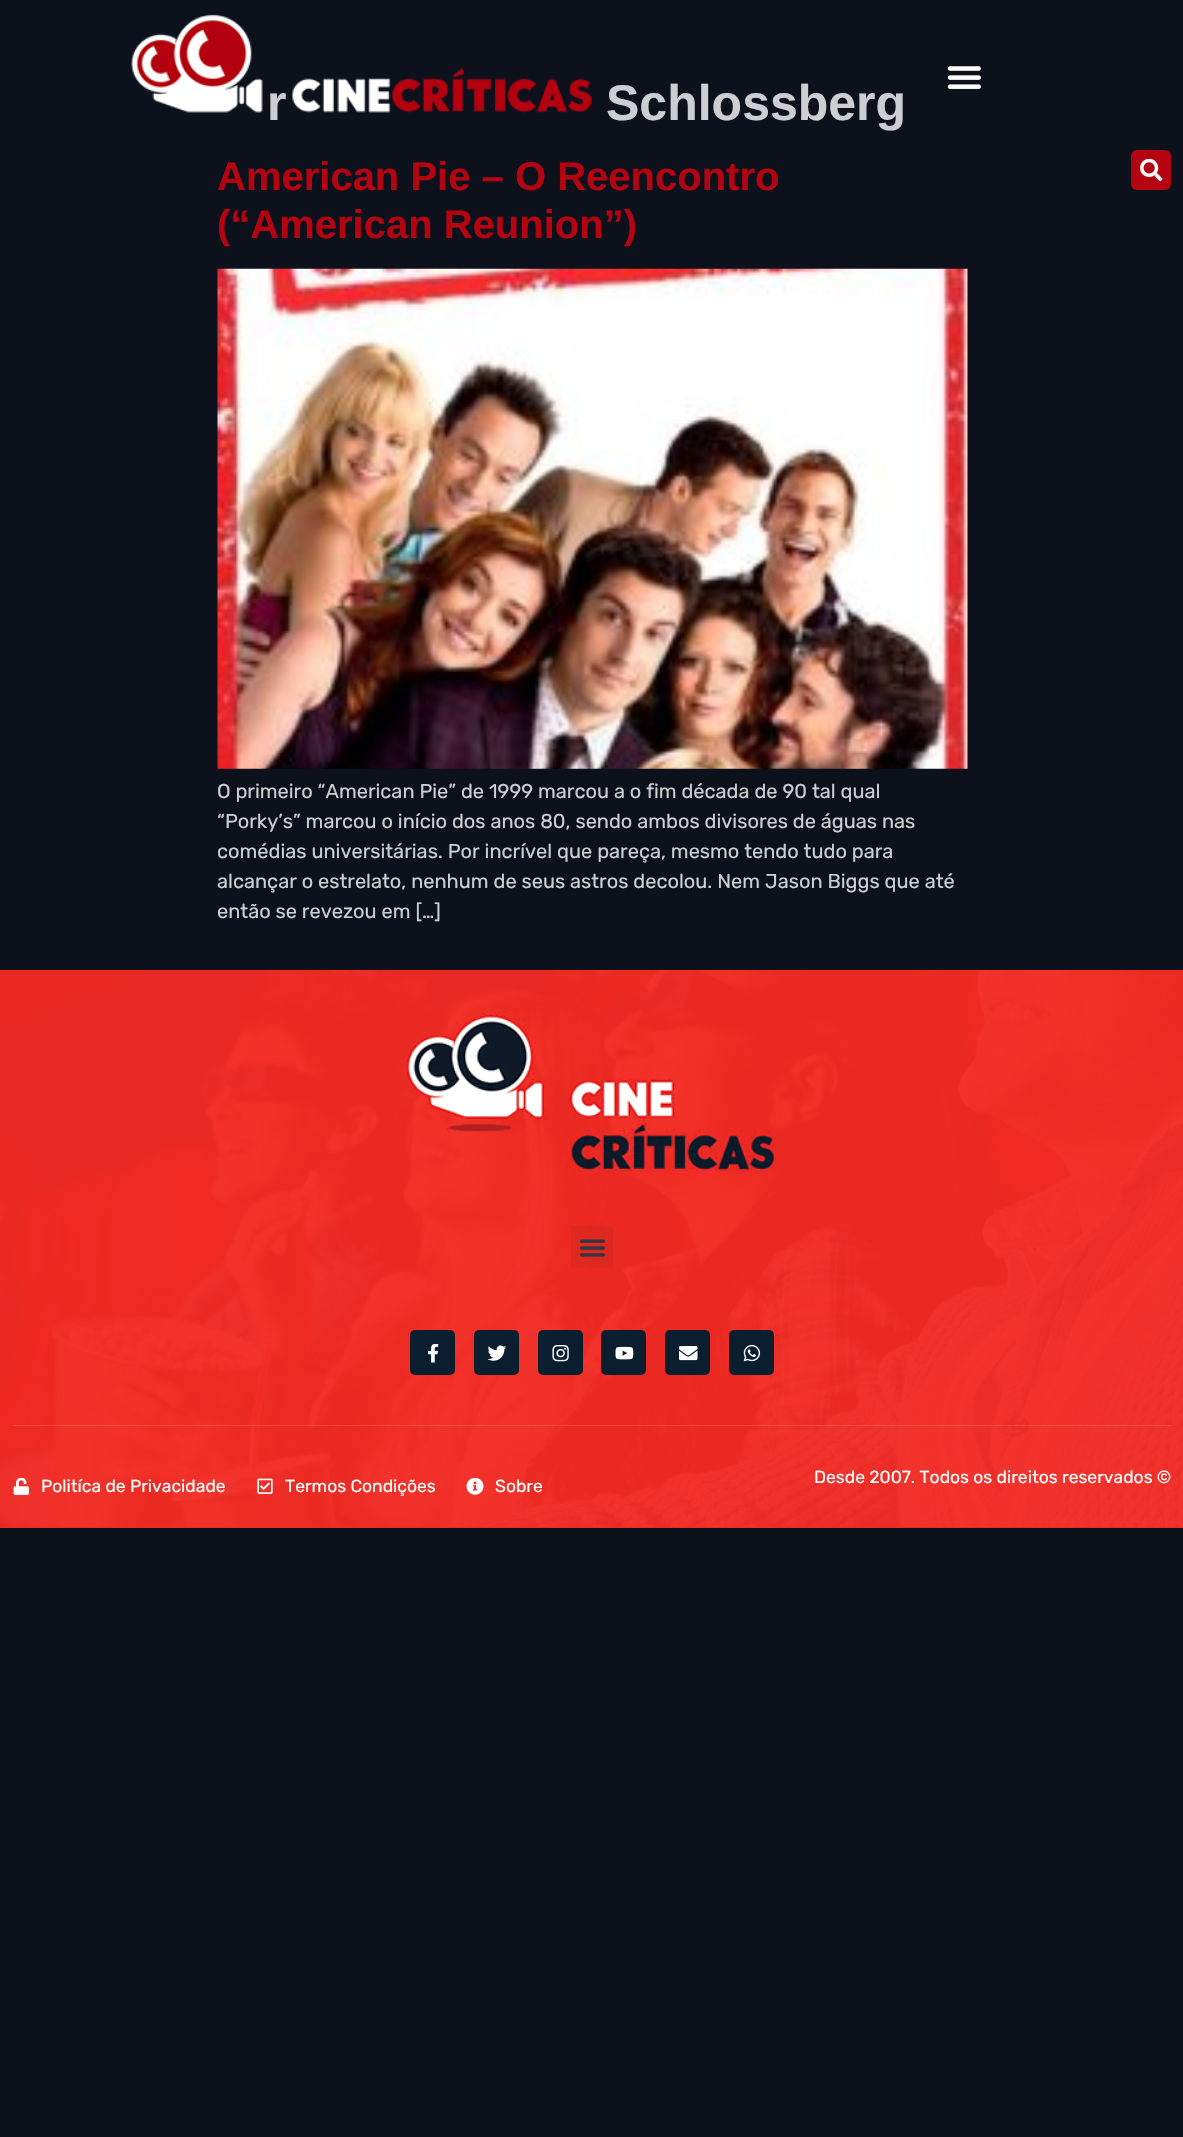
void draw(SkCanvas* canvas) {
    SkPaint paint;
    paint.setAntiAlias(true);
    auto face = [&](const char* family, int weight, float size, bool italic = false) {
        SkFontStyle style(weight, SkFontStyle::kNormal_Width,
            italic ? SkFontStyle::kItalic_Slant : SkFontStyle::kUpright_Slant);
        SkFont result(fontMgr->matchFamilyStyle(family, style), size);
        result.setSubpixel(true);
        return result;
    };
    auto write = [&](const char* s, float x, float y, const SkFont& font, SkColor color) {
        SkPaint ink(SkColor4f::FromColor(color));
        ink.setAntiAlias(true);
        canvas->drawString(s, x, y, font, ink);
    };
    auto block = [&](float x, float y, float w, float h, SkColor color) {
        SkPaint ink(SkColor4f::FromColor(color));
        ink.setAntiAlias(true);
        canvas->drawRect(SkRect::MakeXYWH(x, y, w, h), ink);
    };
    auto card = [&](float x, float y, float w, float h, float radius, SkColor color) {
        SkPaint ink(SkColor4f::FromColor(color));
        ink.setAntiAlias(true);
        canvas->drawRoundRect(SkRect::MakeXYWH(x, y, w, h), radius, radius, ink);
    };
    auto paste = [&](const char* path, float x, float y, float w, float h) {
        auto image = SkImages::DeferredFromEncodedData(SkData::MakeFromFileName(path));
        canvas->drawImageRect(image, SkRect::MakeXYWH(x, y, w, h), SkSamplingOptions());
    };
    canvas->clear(SkColorSetRGB(12, 17, 27));
    auto kFont1 = face("Liberation Sans", 700, 50);
    write("r", 267, 120, kFont1, SkColorSetRGB(205, 206, 209));
    paste("pic1.png", 131, 14, 461, 99);
    paste("pic2.png", 947, 66, 34, 23);
    card(1131, 150, 40, 40, 6, SkColorSetRGB(180, 4, 18));
    paste("pic3.png", 1140, 159, 23, 22);
    write("Schlossberg", 606, 120, kFont1, SkColorSetRGB(205, 206, 209));
    auto kFont2 = face("Liberation Sans", 700, 40);
    write("American Pie – O Reencontro", 217, 190, kFont2, SkColorSetRGB(180, 4, 18));
    write("(“American Reunion”)", 217, 238, kFont2, SkColorSetRGB(180, 4, 18));
    paste("pic4.png", 217, 268, 751, 501);
    auto kFont3 = face("Rubik", 400, 20);
    write("O primeiro “American Pie” de 1999 marcou a o fim década de 90 tal qual", 217, 798, kFont3, SkColorSetRGB(205, 206, 209));
    write("“Porky’s” marcou o início dos anos 80, sendo ambos divisores de águas nas", 217, 828, kFont3, SkColorSetRGB(205, 206, 209));
    write("comédias universitárias. Por incrível que pareça, mesmo tendo tudo para", 217, 858, kFont3, SkColorSetRGB(205, 206, 209));
    write("alcançar o estrelato, nenhum de seus astros decolou. Nem Jason Biggs que até", 217, 888, kFont3, SkColorSetRGB(205, 206, 209));
    write("então se revezou em […]", 217, 918, kFont3, SkColorSetRGB(205, 206, 209));
    block(0, 970, 1183, 558, SkColorSetRGB(243, 42, 35));
    paste("pic5.png", 0, 970, 1183, 557);
    paste("pic6.png", 406, 1010, 371, 164);
    block(571, 1226, 42, 42, SkColorSetARGB(13, 0, 0, 0));
    paste("pic7.png", 579, 1239, 27, 18);
    card(410, 1330, 45, 45, 5, SkColorSetRGB(11, 30, 47));
    paste("pic8.png", 428, 1344, 11, 19);
    card(474, 1330, 45, 45, 5, SkColorSetRGB(11, 30, 47));
    paste("pic9.png", 488, 1345, 18, 16);
    card(538, 1330, 45, 45, 5, SkColorSetRGB(11, 30, 47));
    paste("pic10.png", 552, 1345, 17, 17);
    card(601, 1330, 45, 45, 5, SkColorSetRGB(11, 30, 47));
    paste("pic11.png", 615, 1346, 19, 14);
    card(665, 1330, 45, 45, 5, SkColorSetRGB(11, 30, 47));
    paste("pic12.png", 679, 1346, 19, 15);
    card(729, 1330, 45, 45, 5, SkColorSetRGB(11, 30, 47));
    paste("pic13.png", 743, 1344, 18, 18);
    block(13, 1425, 1158, 1, SkColorSetARGB(33, 255, 255, 255));
    auto kFont4 = face("Rubik", 400, 17.5f);
    write("Desde 2007. Todos os direitos reservados ©", 814, 1483, kFont4, SK_ColorWHITE);
    paste("pic14.png", 13, 1478, 16, 17);
    write("Politíca de Privacidade", 41, 1492, kFont4, SK_ColorWHITE);
    paste("pic15.png", 257, 1478, 16, 16);
    write("Termos Condições", 285, 1492, kFont4, SK_ColorWHITE);
    paste("pic16.png", 466, 1478, 18, 17);
    write("Sobre", 495, 1492, kFont4, SK_ColorWHITE);
}
